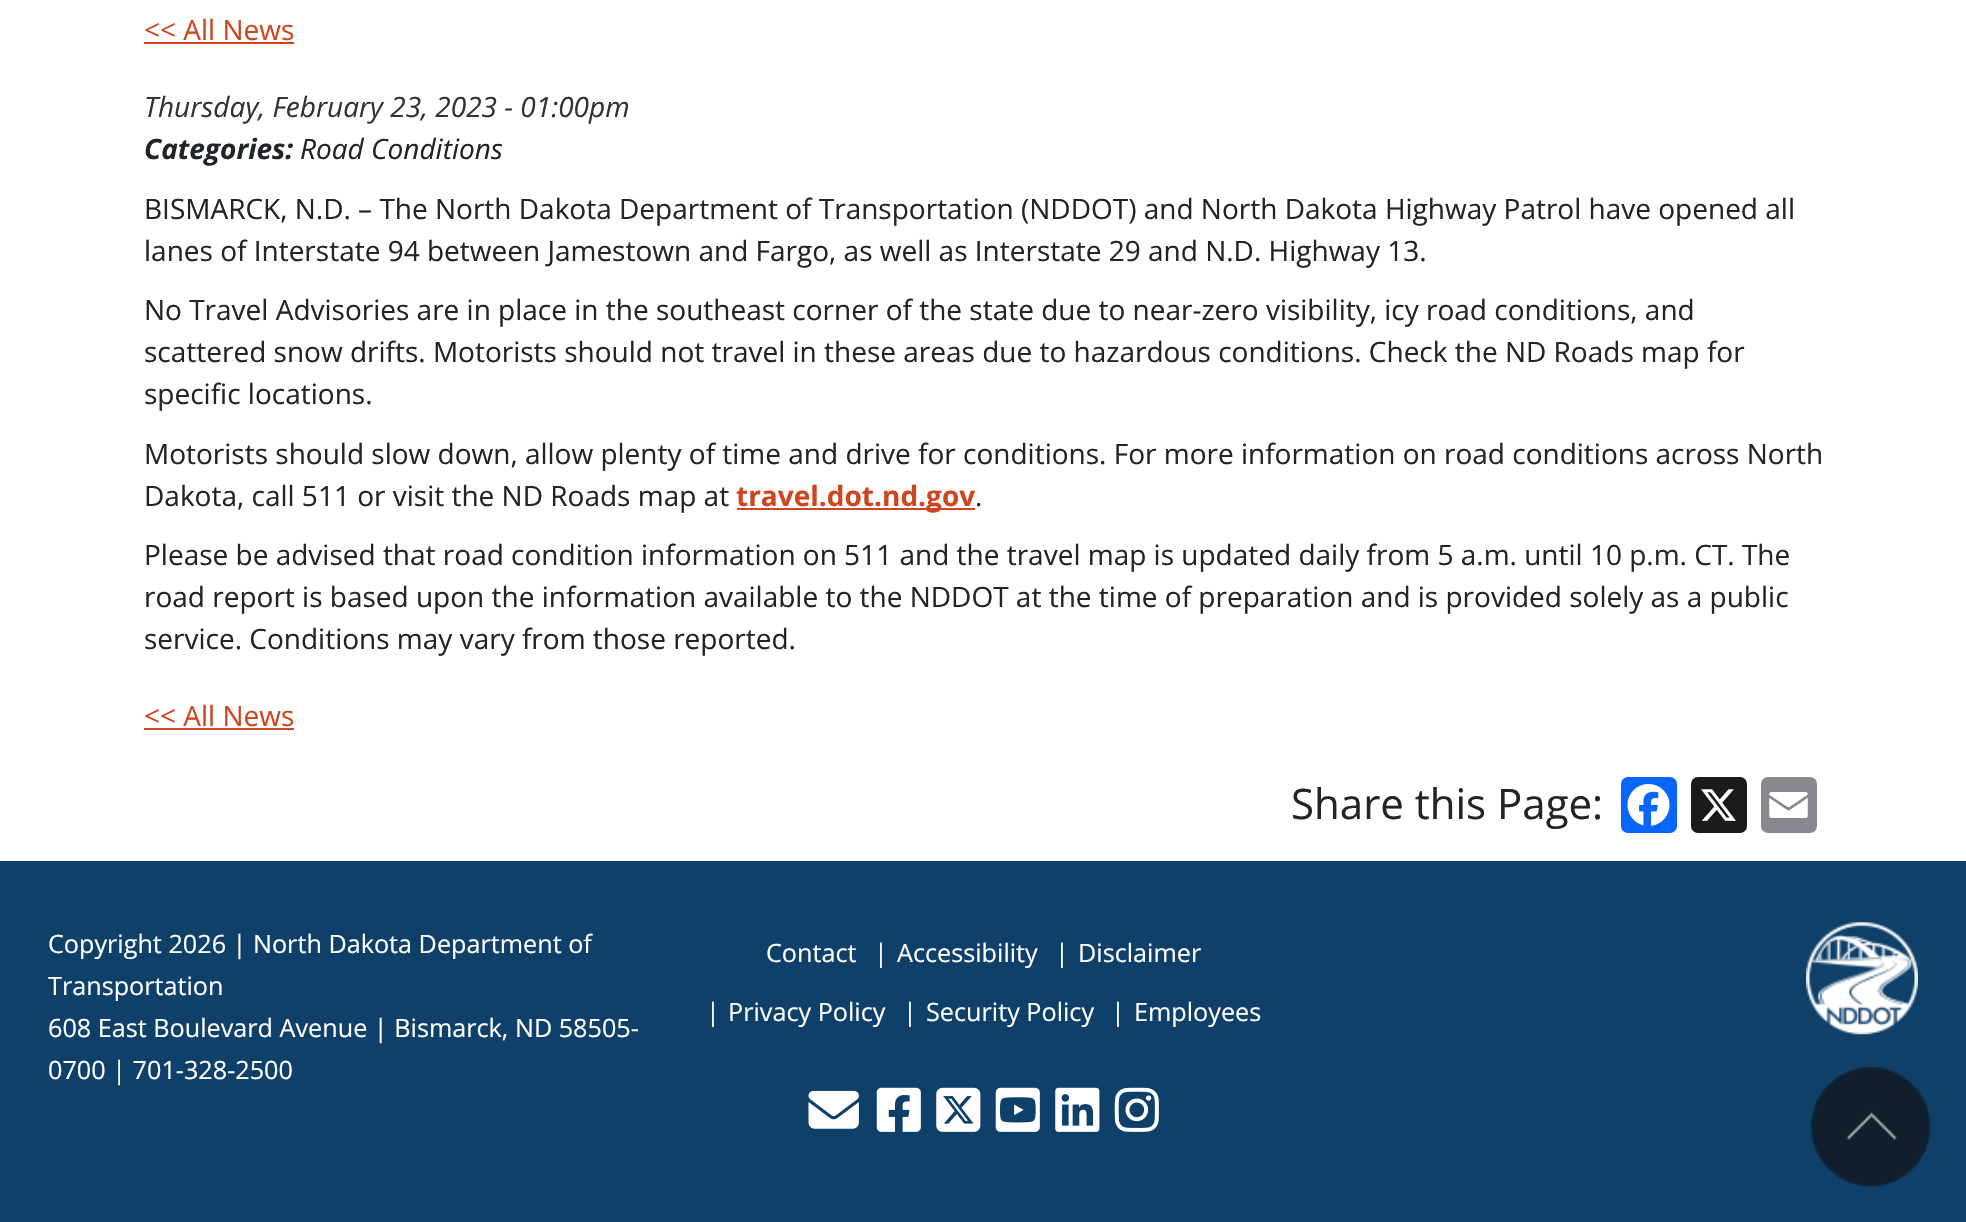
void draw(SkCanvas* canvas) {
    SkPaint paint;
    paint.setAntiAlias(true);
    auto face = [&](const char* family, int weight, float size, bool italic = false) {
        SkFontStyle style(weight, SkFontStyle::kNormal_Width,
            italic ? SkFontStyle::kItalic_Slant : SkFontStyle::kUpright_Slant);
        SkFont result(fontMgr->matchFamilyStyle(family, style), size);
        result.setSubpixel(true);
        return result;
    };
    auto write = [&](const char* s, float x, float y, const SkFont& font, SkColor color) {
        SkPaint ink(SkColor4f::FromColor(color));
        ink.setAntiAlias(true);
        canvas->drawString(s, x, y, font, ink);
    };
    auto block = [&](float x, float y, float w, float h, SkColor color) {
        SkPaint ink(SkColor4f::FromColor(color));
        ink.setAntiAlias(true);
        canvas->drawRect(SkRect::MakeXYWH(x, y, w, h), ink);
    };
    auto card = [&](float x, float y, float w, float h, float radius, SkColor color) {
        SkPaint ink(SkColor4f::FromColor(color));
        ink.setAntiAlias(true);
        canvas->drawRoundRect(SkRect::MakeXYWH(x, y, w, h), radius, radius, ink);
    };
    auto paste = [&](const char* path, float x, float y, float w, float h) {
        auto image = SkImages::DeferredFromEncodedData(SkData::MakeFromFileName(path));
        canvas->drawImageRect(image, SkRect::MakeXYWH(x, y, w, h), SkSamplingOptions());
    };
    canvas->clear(SK_ColorWHITE);
    auto kFont1 = face("Open Sans", 400, 28);
    write("<< All News", 144, 40, kFont1, SkColorSetRGB(207, 69, 32));
    block(144, 42, 150, 2, SkColorSetRGB(207, 69, 32));
    auto kFont2 = face("Open Sans", 400, 28, true);
    write("Thursday, February 23, 2023 - 01:00pm", 144, 117, kFont2, SkColorSetRGB(51, 51, 51));
    auto kFont3 = face("Open Sans", 700, 28, true);
    write("Categories:", 144, 159, kFont3, SkColorSetRGB(33, 37, 41));
    write("Road Conditions", 300, 159, kFont2, SkColorSetRGB(33, 37, 41));
    write("BISMARCK, N.D. – The North Dakota Department of Transportation (NDDOT) and North Dakota Highway Patrol have opened all", 144, 219, kFont1, SkColorSetRGB(33, 37, 41));
    write("lanes of Interstate 94 between Jamestown and Fargo, as well as Interstate 29 and N.D. Highway 13.", 144, 261, kFont1, SkColorSetRGB(33, 37, 41));
    write("No Travel Advisories are in place in the southeast corner of the state due to near-zero visibility, icy road conditions, and", 144, 320, kFont1, SkColorSetRGB(33, 37, 41));
    write("scattered snow drifts. Motorists should not travel in these areas due to hazardous conditions. Check the ND Roads map for", 144, 362, kFont1, SkColorSetRGB(33, 37, 41));
    write("specific locations.", 144, 404, kFont1, SkColorSetRGB(33, 37, 41));
    write("Motorists should slow down, allow plenty of time and drive for conditions. For more information on road conditions across North", 144, 464, kFont1, SkColorSetRGB(33, 37, 41));
    write("Dakota, call 511 or visit the ND Roads map at", 144, 506, kFont1, SkColorSetRGB(33, 37, 41));
    block(737, 508, 238, 2, SkColorSetRGB(207, 69, 32));
    auto kFont4 = face("Open Sans", 700, 28);
    write("travel.dot.nd.gov", 736, 506, kFont4, SkColorSetRGB(207, 69, 32));
    write(".", 975, 506, kFont1, SkColorSetRGB(33, 37, 41));
    write("Please be advised that road condition information on 511 and the travel map is updated daily from 5 a.m. until 10 p.m. CT. The", 144, 565, kFont1, SkColorSetRGB(33, 37, 41));
    write("road report is based upon the information available to the NDDOT at the time of preparation and is provided solely as a public", 144, 607, kFont1, SkColorSetRGB(33, 37, 41));
    write("service. Conditions may vary from those reported.", 144, 649, kFont1, SkColorSetRGB(33, 37, 41));
    write("<< All News", 144, 726, kFont1, SkColorSetRGB(207, 69, 32));
    block(144, 728, 150, 2, SkColorSetRGB(207, 69, 32));
    auto kFont5 = face("Open Sans", 400, 42);
    write("Share this Page:", 1291, 819, kFont5, SkColorSetRGB(33, 37, 41));
    card(1621, 777, 56, 56, 7, SkColorSetRGB(8, 102, 255));
    paste("pic1.png", 1627, 784, 43, 42);
    card(1691, 777, 56, 56, 7, SkColorSetRGB(26, 26, 26));
    paste("pic2.png", 1701, 789, 35, 32);
    card(1761, 777, 56, 56, 7, SkColorSetRGB(136, 137, 144));
    paste("pic3.png", 1769, 792, 39, 26);
    block(0, 861, 1966, 361, SkColorSetRGB(14, 64, 106));
    auto kFont6 = face("Open Sans", 400, 25.2f);
    write("Copyright 2026 | North Dakota Department of", 48, 953, kFont6, SK_ColorWHITE);
    write("Transportation", 48, 995, kFont6, SK_ColorWHITE);
    write("608 East Boulevard Avenue | Bismarck, ND 58505-", 48, 1037, kFont6, SK_ColorWHITE);
    write("0700 | 701-328-2500", 48, 1079, kFont6, SK_ColorWHITE);
    write("Contact", 766, 962, kFont6, SK_ColorWHITE);
    write("|", 874, 962, kFont6, SK_ColorWHITE);
    write("Accessibility", 897, 962, kFont6, SK_ColorWHITE);
    write("|", 1055, 962, kFont6, SK_ColorWHITE);
    write("Disclaimer", 1078, 962, kFont6, SK_ColorWHITE);
    write("|", 706, 1021, kFont6, SK_ColorWHITE);
    write("Privacy Policy", 728, 1021, kFont6, SK_ColorWHITE);
    write("|", 903, 1021, kFont6, SK_ColorWHITE);
    write("Security Policy", 926, 1021, kFont6, SK_ColorWHITE);
    write("|", 1111, 1021, kFont6, SK_ColorWHITE);
    write("Employees", 1134, 1021, kFont6, SK_ColorWHITE);
    paste("pic4.png", 808, 1090, 51, 39);
    paste("pic5.png", 876, 1087, 45, 45);
    paste("pic6.png", 936, 1087, 45, 45);
    paste("pic7.png", 995, 1087, 45, 45);
    paste("pic8.png", 1055, 1087, 45, 45);
    paste("pic9.png", 1114, 1087, 45, 45);
    paste("pic10.png", 1806, 922, 112, 113);
    paste("pic11.png", 1810, 1066, 121, 121);
}
